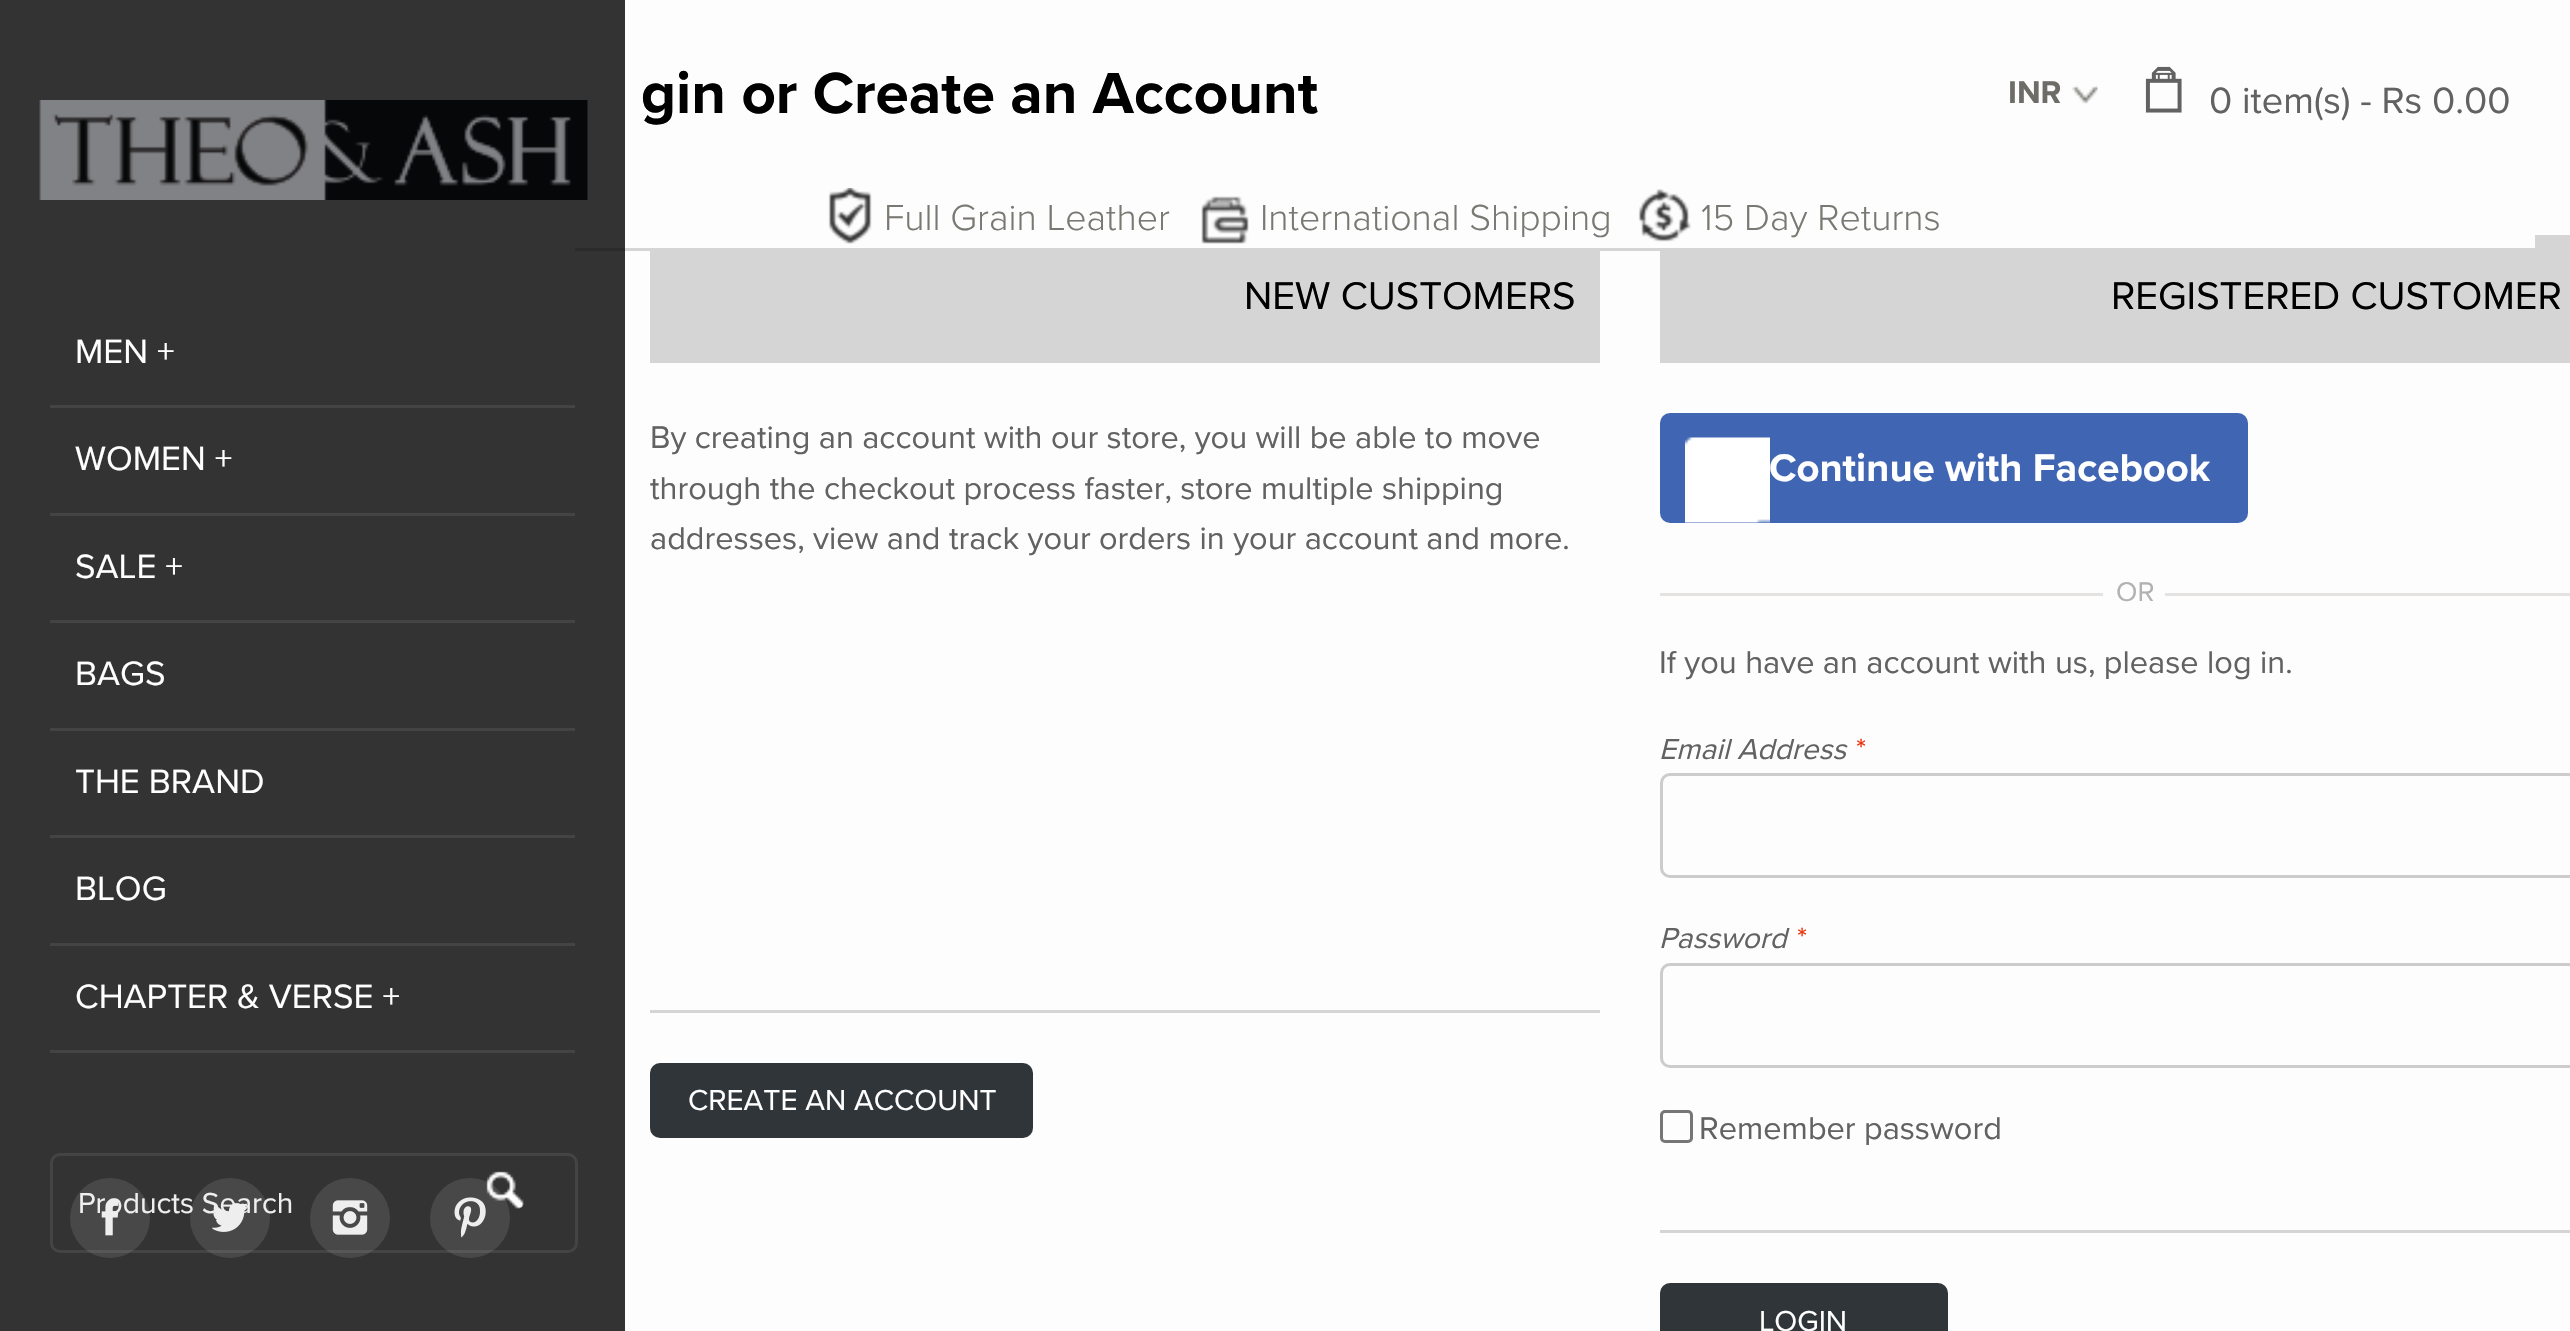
void draw(SkCanvas* canvas) {
    SkPaint paint;
    paint.setAntiAlias(true);
    auto face = [&](const char* family, int weight, float size, bool italic = false) {
        SkFontStyle style(weight, SkFontStyle::kNormal_Width,
            italic ? SkFontStyle::kItalic_Slant : SkFontStyle::kUpright_Slant);
        SkFont result(fontMgr->matchFamilyStyle(family, style), size);
        result.setSubpixel(true);
        return result;
    };
    auto write = [&](const char* s, float x, float y, const SkFont& font, SkColor color) {
        SkPaint ink(SkColor4f::FromColor(color));
        ink.setAntiAlias(true);
        canvas->drawString(s, x, y, font, ink);
    };
    auto block = [&](float x, float y, float w, float h, SkColor color) {
        SkPaint ink(SkColor4f::FromColor(color));
        ink.setAntiAlias(true);
        canvas->drawRect(SkRect::MakeXYWH(x, y, w, h), ink);
    };
    auto card = [&](float x, float y, float w, float h, float radius, SkColor color) {
        SkPaint ink(SkColor4f::FromColor(color));
        ink.setAntiAlias(true);
        canvas->drawRoundRect(SkRect::MakeXYWH(x, y, w, h), radius, radius, ink);
    };
    auto paste = [&](const char* path, float x, float y, float w, float h) {
        auto image = SkImages::DeferredFromEncodedData(SkData::MakeFromFileName(path));
        canvas->drawImageRect(image, SkRect::MakeXYWH(x, y, w, h), SkSamplingOptions());
    };
    canvas->clear(SkColorSetRGB(253, 253, 253));
    block(1660, 235, 910, 128, SkColorSetRGB(213, 213, 213));
    block(1660, 235, 875, 13, SkColorSetRGB(253, 253, 253));
    block(575, 248, 1085, 3, SkColorSetRGB(213, 213, 213));
    auto kFont1 = face("Proxima Nova", 700, 60);
    write("gin or Create an Account", 641, 113, kFont1, SK_ColorBLACK);
    auto kFont2 = face("Proxima Nova", 700, 32.5f);
    write("INR", 2008, 103, kFont2, SkColorSetRGB(109, 108, 103));
    paste("pic1.png", 2072, 85, 26, 19);
    paste("pic2.png", 2145, 66, 37, 47);
    auto kFont3 = face("Proxima Nova", 400, 38);
    write("0 item(s) - Rs 0.00", 2209, 113, kFont3, SkColorSetRGB(98, 98, 98));
    paste("pic3.png", 828, 188, 44, 56);
    auto kFont4 = face("Proxima Nova", 300, 37.5f);
    write("Full Grain Leather", 884, 230, kFont4, SkColorSetRGB(121, 120, 114));
    paste("pic4.png", 1201, 196, 48, 48);
    write("International Shipping", 1260, 230, kFont4, SkColorSetRGB(121, 120, 114));
    paste("pic5.png", 1638, 189, 53, 53);
    write("15 Day Returns", 1701, 230, kFont4, SkColorSetRGB(121, 120, 114));
    block(0, 0, 625, 1331, SkColorSetARGB(204, 0, 0, 0));
    paste("pic6.png", 39, 100, 549, 100);
    block(50, 405, 525, 3, SkColorSetRGB(68, 68, 68));
    auto kFont5 = face("Proxima Nova", 400, 35);
    write("MEN +", 75, 363, kFont5, SK_ColorWHITE);
    block(50, 513, 525, 3, SkColorSetRGB(68, 68, 68));
    write("WOMEN +", 75, 470, kFont5, SK_ColorWHITE);
    block(50, 620, 525, 3, SkColorSetRGB(68, 68, 68));
    write("SALE +", 75, 578, kFont5, SK_ColorWHITE);
    block(50, 728, 525, 3, SkColorSetRGB(68, 68, 68));
    write("BAGS", 75, 685, kFont5, SK_ColorWHITE);
    block(50, 835, 525, 3, SkColorSetRGB(68, 68, 68));
    write("THE BRAND", 75, 793, kFont5, SK_ColorWHITE);
    block(50, 943, 525, 3, SkColorSetRGB(68, 68, 68));
    write("BLOG", 75, 900, kFont5, SK_ColorWHITE);
    block(50, 1050, 525, 3, SkColorSetRGB(68, 68, 68));
    write("CHAPTER & VERSE +", 75, 1008, kFont5, SK_ColorWHITE);
    paint.setStyle(SkPaint::kStroke_Style);
    paint.setStrokeWidth(3);
    paint.setColor(SkColorSetRGB(68, 68, 68));
    canvas->drawRoundRect(SkRect::MakeXYWH(51.5f, 1154.5f, 525, 97), 8.5f, 8.5f, paint);
    paste("pic7.png", 486, 1171, 38, 38);
    auto kFont6 = face("Proxima Nova", 400, 30);
    write("Products Search", 78, 1213, kFont6, SkColorSetRGB(238, 238, 238));
    paste("pic8.png", 486, 1171, 38, 38);
    paint.setStyle(SkPaint::kFill_Style);
    paint.setColor(SkColorSetARGB(26, 255, 255, 255));
    canvas->drawCircle(110, 1218, 40, paint);
    paste("pic9.png", 101, 1199, 18, 37);
    canvas->drawCircle(230, 1218, 40, paint);
    paste("pic10.png", 212, 1203, 36, 29);
    canvas->drawCircle(350, 1218, 40, paint);
    paste("pic11.png", 332, 1200, 36, 35);
    canvas->drawCircle(470, 1218, 40, paint);
    paste("pic12.png", 454, 1197, 32, 41);
    block(650, 251, 950, 112, SkColorSetRGB(213, 213, 213));
    auto kFont7 = face("Proxima Nova", 400, 40);
    write("NEW CUSTOMERS", 1244, 309, kFont7, SK_ColorBLACK);
    auto kFont8 = face("Proxima Nova", 400, 32.5f);
    write("By creating an account with our store, you will be able to move", 650, 448, kFont8, SkColorSetRGB(98, 98, 98));
    write("through the checkout process faster, store multiple shipping", 650, 499, kFont8, SkColorSetRGB(98, 98, 98));
    write("addresses, view and track your orders in your account and more.", 650, 549, kFont8, SkColorSetRGB(98, 98, 98));
    block(650, 1010, 950, 3, SkColorSetRGB(213, 213, 213));
    card(650, 1063, 383, 75, 10, SkColorSetRGB(47, 53, 56));
    write("CREATE AN ACCOUNT", 688, 1110, kFont6, SK_ColorWHITE);
    write("REGISTERED CUSTOMER", 2111, 309, kFont7, SK_ColorBLACK);
    card(1660, 413, 588, 110, 10, SkColorSetRGB(64, 101, 179));
    paste("pic13.png", 1685, 437, 85, 86);
    auto kFont9 = face("Proxima Nova", 700, 40);
    write("Continue with Facebook", 1769, 481, kFont9, SK_ColorWHITE);
    block(1660, 593, 443, 3, SkColorSetRGB(229, 226, 226));
    auto kFont10 = face("Proxima Nova", 400, 28);
    write("OR", 2116, 601, kFont10, SkColorSetRGB(178, 178, 178));
    block(2165, 593, 405, 3, SkColorSetRGB(229, 226, 226));
    write("If you have an account with us, please log in.", 1659, 673, kFont8, SkColorSetRGB(98, 98, 98));
    auto kFont11 = face("Proxima Nova", 400, 30, true);
    write("Email Address", 1659, 759, kFont11, SkColorSetRGB(98, 98, 98));
    write("*", 1856, 759, kFont6, SkColorSetRGB(235, 52, 10));
    paint.setStyle(SkPaint::kStroke_Style);
    paint.setColor(SkColorSetRGB(204, 204, 204));
    canvas->drawRoundRect(SkRect::MakeXYWH(1661.5f, 774.5f, 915, 102), 8.5f, 8.5f, paint);
    write("Password", 1659, 948, kFont11, SkColorSetRGB(98, 98, 98));
    write("*", 1797, 948, kFont6, SkColorSetRGB(235, 52, 10));
    canvas->drawRoundRect(SkRect::MakeXYWH(1661.5f, 964.5f, 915, 102), 8.5f, 8.5f, paint);
    paint.setColor(SkColorSetRGB(118, 118, 118));
    canvas->drawRoundRect(SkRect::MakeXYWH(1661.5f, 1111.5f, 30, 30), 3.5f, 3.5f, paint);
    write("Remember password", 1699, 1139, kFont8, SkColorSetRGB(98, 98, 98));
    block(1660, 1230, 910, 3, SkColorSetRGB(213, 213, 213));
    card(1660, 1283, 288, 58, 10, SkColorSetRGB(47, 53, 56));
    write("LOGIN", 1759, 1331, kFont6, SK_ColorWHITE);
}
